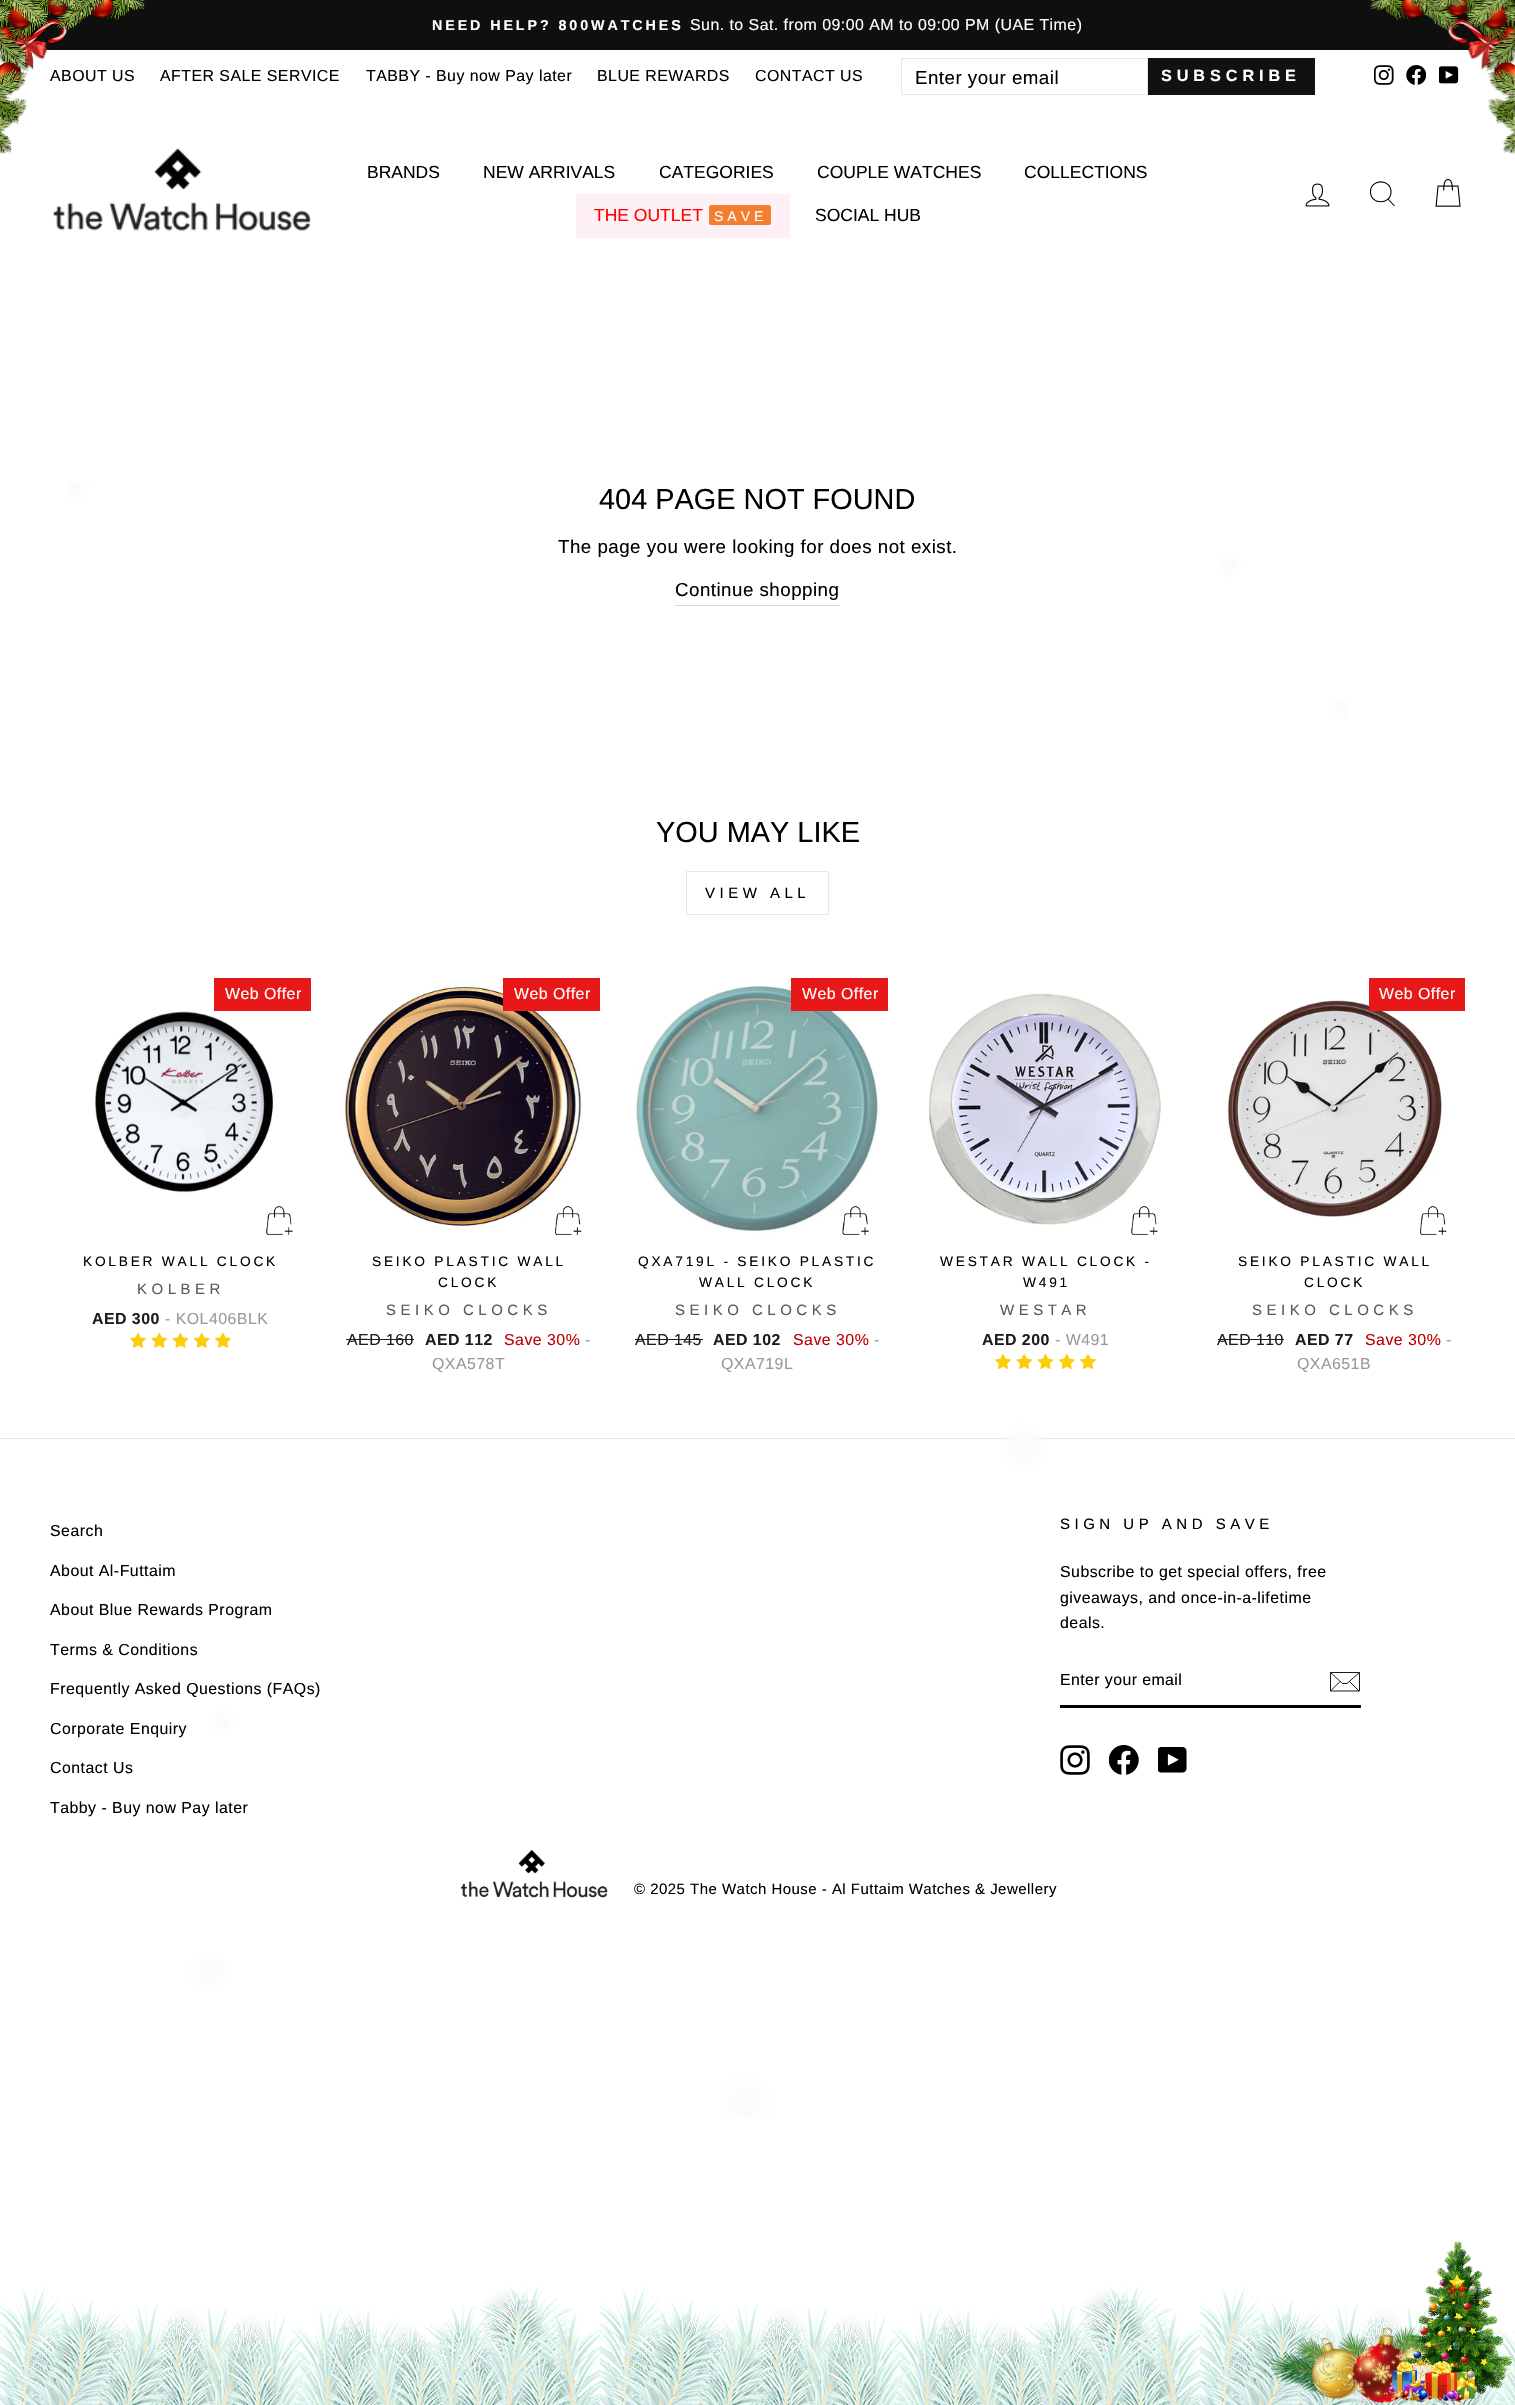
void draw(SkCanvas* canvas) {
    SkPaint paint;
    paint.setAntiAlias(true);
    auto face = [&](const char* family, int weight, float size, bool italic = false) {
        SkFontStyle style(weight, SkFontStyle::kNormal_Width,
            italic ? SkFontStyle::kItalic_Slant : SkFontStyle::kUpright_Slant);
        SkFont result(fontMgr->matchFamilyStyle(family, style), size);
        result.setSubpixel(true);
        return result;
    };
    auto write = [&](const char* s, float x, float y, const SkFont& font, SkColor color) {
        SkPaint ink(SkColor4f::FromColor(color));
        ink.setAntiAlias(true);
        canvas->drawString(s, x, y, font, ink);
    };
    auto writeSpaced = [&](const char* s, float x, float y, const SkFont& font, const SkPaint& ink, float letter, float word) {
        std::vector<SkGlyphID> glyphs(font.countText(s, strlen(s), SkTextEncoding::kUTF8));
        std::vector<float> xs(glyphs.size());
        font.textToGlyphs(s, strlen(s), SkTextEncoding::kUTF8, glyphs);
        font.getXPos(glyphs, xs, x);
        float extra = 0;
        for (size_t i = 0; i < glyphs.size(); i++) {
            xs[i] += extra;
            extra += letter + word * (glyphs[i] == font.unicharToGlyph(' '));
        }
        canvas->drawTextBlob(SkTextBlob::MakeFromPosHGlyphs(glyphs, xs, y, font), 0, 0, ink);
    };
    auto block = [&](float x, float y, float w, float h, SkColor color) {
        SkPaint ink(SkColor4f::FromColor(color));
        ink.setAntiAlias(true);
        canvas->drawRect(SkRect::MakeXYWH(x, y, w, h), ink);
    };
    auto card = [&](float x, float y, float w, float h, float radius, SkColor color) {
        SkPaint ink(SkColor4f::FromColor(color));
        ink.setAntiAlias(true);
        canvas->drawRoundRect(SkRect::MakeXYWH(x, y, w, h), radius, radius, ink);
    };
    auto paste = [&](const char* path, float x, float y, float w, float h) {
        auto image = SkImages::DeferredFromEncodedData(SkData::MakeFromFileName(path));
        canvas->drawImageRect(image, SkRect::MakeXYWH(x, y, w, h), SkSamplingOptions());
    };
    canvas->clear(SK_ColorWHITE);
    block(0, 0, 1515, 50, SkColorSetRGB(15, 15, 15));
    auto kFont1 = face("Liberation Sans", 400, 15.9f);
    paint.setColor(SK_ColorBLACK);
    writeSpaced("ABOUT US", 50, 81, kFont1, paint, 0.47f, 0);
    paste("pic6.png", 53, 148, 258, 83);
    paste("pic1.png", 0, 0, 145, 154);
    paste("pic3.png", 1374, 65, 20, 20);
    paste("pic4.png", 1406, 65, 20, 20);
    paste("pic5.png", 1439, 66, 20, 18);
    paste("pic2.png", 1370, 0, 145, 154);
    auto kFont2 = face("Liberation Sans", 700, 14.3f);
    paint.setColor(SK_ColorWHITE);
    writeSpaced("NEED HELP? 800WATCHES", 432, 30, kFont2, paint, 2.9f, 0);
    writeSpaced("Sun. to Sat. from 09:00 AM to 09:00 PM (UAE Time)", 690, 30, kFont1, paint, 0.47f, 0);
    paint.setColor(SK_ColorBLACK);
    writeSpaced("AFTER SALE SERVICE", 160, 81, kFont1, paint, 0.47f, 0);
    writeSpaced("TABBY - Buy now Pay later", 366, 81, kFont1, paint, 0.47f, 0);
    writeSpaced("BLUE REWARDS", 597, 81, kFont1, paint, 0.47f, 0);
    writeSpaced("CONTACT US", 755, 81, kFont1, paint, 0.47f, 0);
    paint.setStyle(SkPaint::kStroke_Style);
    paint.setStrokeWidth(1);
    paint.setColor(SkColorSetRGB(232, 232, 225));
    canvas->drawRect(SkRect::MakeXYWH(901.5f, 58.5f, 246, 36), paint);
    auto kFont3 = face("Liberation Sans", 400, 18.75f);
    paint.setStyle(SkPaint::kFill_Style);
    paint.setColor(SK_ColorBLACK);
    writeSpaced("Enter your email", 915, 84, kFont3, paint, 0.47f, 0);
    block(1148, 58, 167, 37, SkColorSetRGB(17, 17, 17));
    auto kFont4 = face("Liberation Sans", 700, 16.25f);
    paint.setColor(SK_ColorWHITE);
    writeSpaced("SUBSCRIBE", 1161, 81, kFont4, paint, 4.9f, 0);
    auto kFont5 = face("Liberation Sans", 400, 17.5f);
    write("BRANDS", 367, 178, kFont5, SK_ColorBLACK);
    write("NEW ARRIVALS", 483, 178, kFont5, SK_ColorBLACK);
    write("CATEGORIES", 659, 178, kFont5, SK_ColorBLACK);
    write("COUPLE WATCHES", 817, 178, kFont5, SK_ColorBLACK);
    write("COLLECTIONS", 1024, 178, kFont5, SK_ColorBLACK);
    block(576, 194, 214, 44, SkColorSetRGB(255, 240, 245));
    write("THE OUTLET", 594, 221, kFont5, SkColorSetRGB(255, 0, 0));
    card(709, 205, 62, 20, 2.5f, SkColorSetRGB(242, 126, 47));
    auto kFont6 = face("Liberation Sans", 400, 14);
    writeSpaced("SAVE", 714, 221, kFont6, paint, 4, 0);
    write("SOCIAL HUB", 815, 221, kFont5, SK_ColorBLACK);
    paste("pic7.png", 1305, 183, 25, 24);
    paint.setStyle(SkPaint::kStroke_Style);
    paint.setStrokeWidth(1.1f);
    paint.setColor(SK_ColorBLACK);
    canvas->drawPath(SkPathBuilder().moveTo(1391, 192).cubicTo(1391, 205, 1370.5f, 205, 1370.5f, 192).cubicTo(1370.5f, 178.5f, 1391, 178.5f, 1391, 192).close().moveTo(1394.5f, 206).lineTo(1388, 199).detach(), paint);
    paste("pic8.png", 1435, 179, 26, 28);
    auto kFont7 = face("Liberation Sans", 400, 28.9f);
    write("404 PAGE NOT FOUND", 599, 509, kFont7, SK_ColorBLACK);
    paint.setStyle(SkPaint::kFill_Style);
    writeSpaced("The page you were looking for does not exist.", 558, 553, kFont3, paint, 0.47f, 0);
    block(675, 605, 165, 1, SkColorSetRGB(217, 217, 217));
    writeSpaced("Continue shopping", 675, 596, kFont3, paint, 0.47f, 0);
    write("YOU MAY LIKE", 656, 842, kFont7, SK_ColorBLACK);
    paint.setStyle(SkPaint::kStroke_Style);
    paint.setStrokeWidth(1);
    paint.setColor(SkColorSetRGB(232, 232, 225));
    canvas->drawRect(SkRect::MakeXYWH(686.5f, 871.5f, 142, 43), paint);
    auto kFont8 = face("Liberation Sans", 400, 15);
    paint.setStyle(SkPaint::kFill_Style);
    paint.setColor(SK_ColorBLACK);
    writeSpaced("VIEW ALL", 705, 898, kFont8, paint, 4.5f, 0);
    paste("pic10.png", 94, 1010, 181, 184);
    block(214, 978, 97, 33, SkColorSetRGB(232, 24, 24));
    paint.setColor(SK_ColorWHITE);
    writeSpaced("Web Offer", 225, 999, kFont1, paint, 0.47f, 0);
    paste("pic9.png", 266, 1206, 27, 29);
    auto kFont9 = face("Liberation Sans", 400, 13.75f);
    paint.setColor(SK_ColorBLACK);
    writeSpaced("KOLBER WALL CLOCK", 83, 1266, kFont9, paint, 2.75f, 0);
    paint.setColor(SkColorSetRGB(89, 89, 89));
    writeSpaced("KOLBER", 137, 1294, kFont8, paint, 4.5f, 0);
    auto kFont10 = face("Liberation Sans", 700, 15.9f);
    paint.setColor(SkColorSetRGB(28, 29, 29));
    writeSpaced("AED 300", 92, 1324, kFont10, paint, 0.47f, 0);
    paint.setColor(SkColorSetRGB(153, 153, 153));
    writeSpaced("- KOL406BLK", 165, 1324, kFont1, paint, 0.47f, 0);
    paste("pic11.png", 130, 1332, 16, 16);
    paste("pic12.png", 151, 1332, 17, 16);
    paste("pic13.png", 172, 1332, 17, 16);
    paste("pic14.png", 193, 1332, 17, 16);
    paste("pic11.png", 215, 1332, 16, 16);
    paste("pic16.png", 344, 985, 239, 242);
    block(503, 978, 97, 33, SkColorSetRGB(232, 24, 24));
    paint.setColor(SK_ColorWHITE);
    writeSpaced("Web Offer", 514, 999, kFont1, paint, 0.47f, 0);
    paste("pic15.png", 555, 1206, 27, 29);
    paint.setColor(SK_ColorBLACK);
    writeSpaced("SEIKO PLASTIC WALL", 372, 1266, kFont9, paint, 2.75f, 0);
    writeSpaced("CLOCK", 438, 1287, kFont9, paint, 2.75f, 0);
    paint.setColor(SkColorSetRGB(89, 89, 89));
    writeSpaced("SEIKO CLOCKS", 386, 1315, kFont8, paint, 4.5f, 0);
    paint.setColor(SkColorSetRGB(28, 29, 29));
    writeSpaced("AED 160", 347, 1345, kFont1, paint, 0.47f, 0);
    block(346, 1339, 68, 1, SkColorSetRGB(28, 29, 29));
    writeSpaced("AED 112", 425, 1345, kFont10, paint, 0.47f, 0);
    paint.setColor(SkColorSetRGB(194, 0, 0));
    writeSpaced("Save 30%", 504, 1345, kFont1, paint, 0.47f, 0);
    paint.setColor(SkColorSetRGB(153, 153, 153));
    writeSpaced("-", 585, 1345, kFont1, paint, 0.47f, 0);
    writeSpaced("QXA578T", 432, 1369, kFont1, paint, 0.47f, 0);
    paste("pic18.png", 636, 985, 244, 248);
    block(791, 978, 97, 33, SkColorSetRGB(232, 24, 24));
    paint.setColor(SK_ColorWHITE);
    writeSpaced("Web Offer", 802, 999, kFont1, paint, 0.47f, 0);
    paste("pic17.png", 842, 1206, 27, 29);
    paint.setColor(SK_ColorBLACK);
    writeSpaced("QXA719L - SEIKO PLASTIC", 638, 1266, kFont9, paint, 2.75f, 0);
    writeSpaced("WALL CLOCK", 699, 1287, kFont9, paint, 2.75f, 0);
    paint.setColor(SkColorSetRGB(89, 89, 89));
    writeSpaced("SEIKO CLOCKS", 675, 1315, kFont8, paint, 4.5f, 0);
    paint.setColor(SkColorSetRGB(28, 29, 29));
    writeSpaced("AED 145", 635, 1345, kFont1, paint, 0.47f, 0);
    block(635, 1339, 68, 1, SkColorSetRGB(28, 29, 29));
    writeSpaced("AED 102", 713, 1345, kFont10, paint, 0.47f, 0);
    paint.setColor(SkColorSetRGB(194, 0, 0));
    writeSpaced("Save 30%", 793, 1345, kFont1, paint, 0.47f, 0);
    paint.setColor(SkColorSetRGB(153, 153, 153));
    writeSpaced("-", 874, 1345, kFont1, paint, 0.47f, 0);
    writeSpaced("QXA719L", 721, 1369, kFont1, paint, 0.47f, 0);
    paste("pic19.png", 928, 992, 234, 233);
    paste("pic9.png", 1131, 1206, 27, 29);
    paint.setColor(SK_ColorBLACK);
    writeSpaced("WESTAR WALL CLOCK -", 940, 1266, kFont9, paint, 2.75f, 0);
    writeSpaced("W491", 1023, 1287, kFont9, paint, 2.75f, 0);
    paint.setColor(SkColorSetRGB(89, 89, 89));
    writeSpaced("WESTAR", 1000, 1315, kFont8, paint, 4.5f, 0);
    paint.setColor(SkColorSetRGB(28, 29, 29));
    writeSpaced("AED 200", 982, 1345, kFont10, paint, 0.47f, 0);
    paint.setColor(SkColorSetRGB(153, 153, 153));
    writeSpaced("- W491", 1055, 1345, kFont1, paint, 0.47f, 0);
    paste("pic20.png", 995, 1354, 16, 16);
    paste("pic21.png", 1016, 1354, 17, 16);
    paste("pic22.png", 1037, 1354, 17, 16);
    paste("pic23.png", 1058, 1354, 17, 16);
    paste("pic20.png", 1080, 1354, 16, 16);
    paste("pic25.png", 1227, 1000, 215, 218);
    block(1369, 978, 96, 33, SkColorSetRGB(232, 24, 24));
    paint.setColor(SK_ColorWHITE);
    writeSpaced("Web Offer", 1379, 999, kFont1, paint, 0.47f, 0);
    paste("pic24.png", 1420, 1206, 27, 29);
    paint.setColor(SK_ColorBLACK);
    writeSpaced("SEIKO PLASTIC WALL", 1238, 1266, kFont9, paint, 2.75f, 0);
    writeSpaced("CLOCK", 1304, 1287, kFont9, paint, 2.75f, 0);
    paint.setColor(SkColorSetRGB(89, 89, 89));
    writeSpaced("SEIKO CLOCKS", 1252, 1315, kFont8, paint, 4.5f, 0);
    paint.setColor(SkColorSetRGB(28, 29, 29));
    writeSpaced("AED 110", 1217, 1345, kFont1, paint, 0.47f, 0);
    block(1218, 1339, 66, 1, SkColorSetRGB(28, 29, 29));
    writeSpaced("AED 77", 1295, 1345, kFont10, paint, 0.47f, 0);
    paint.setColor(SkColorSetRGB(194, 0, 0));
    writeSpaced("Save 30%", 1365, 1345, kFont1, paint, 0.47f, 0);
    paint.setColor(SkColorSetRGB(153, 153, 153));
    writeSpaced("-", 1446, 1345, kFont1, paint, 0.47f, 0);
    writeSpaced("QXA651B", 1297, 1369, kFont1, paint, 0.47f, 0);
    block(0, 1438, 1515, 1, SkColorSetRGB(232, 232, 225));
    paint.setColor(SK_ColorBLACK);
    writeSpaced("Search", 50, 1536, kFont1, paint, 0.47f, 0);
    writeSpaced("About Al-Futtaim", 50, 1576, kFont1, paint, 0.47f, 0);
    writeSpaced("About Blue Rewards Program", 50, 1615, kFont1, paint, 0.47f, 0);
    writeSpaced("Terms & Conditions", 50, 1655, kFont1, paint, 0.47f, 0);
    writeSpaced("Frequently Asked Questions (FAQs)", 50, 1694, kFont1, paint, 0.47f, 0);
    writeSpaced("Corporate Enquiry", 50, 1734, kFont1, paint, 0.47f, 0);
    writeSpaced("Contact Us", 50, 1773, kFont1, paint, 0.47f, 0);
    writeSpaced("Tabby - Buy now Pay later", 50, 1813, kFont1, paint, 0.47f, 0);
    writeSpaced("SIGN UP AND SAVE", 1060, 1529, kFont8, paint, 4.5f, 0);
    writeSpaced("Subscribe to get special offers, free", 1060, 1577, kFont1, paint, 0.47f, 0);
    writeSpaced("giveaways, and once-in-a-lifetime", 1060, 1603, kFont1, paint, 0.47f, 0);
    writeSpaced("deals.", 1060, 1628, kFont1, paint, 0.47f, 0);
    block(1060, 1705, 301, 3, SK_ColorBLACK);
    writeSpaced("Enter your email", 1060, 1685, kFont1, paint, 0.4f, 0);
    paint.setStyle(SkPaint::kStroke_Style);
    paint.setStrokeWidth(0.9f);
    canvas->drawPath(SkPathBuilder().moveTo(1359.5f, 1691).lineTo(1330.5f, 1691).lineTo(1330.5f, 1672.5f).lineTo(1359.5f, 1672.5f).close().moveTo(1330.5f, 1672.5f).lineTo(1342.5f, 1683.5f).lineTo(1347, 1683.5f).lineTo(1359.5f, 1672.5f).moveTo(1340, 1681.5f).lineTo(1330.5f, 1691).moveTo(1359, 1691).lineTo(1349.5f, 1681.5f).detach(), paint);
    paste("pic26.png", 1060, 1745, 30, 30);
    paste("pic27.png", 1109, 1745, 30, 30);
    paste("pic28.png", 1158, 1747, 29, 26);
    paste("pic29.png", 461, 1849, 147, 49);
    paint.setStyle(SkPaint::kFill_Style);
    writeSpaced("© 2025 The Watch House - Al Futtaim Watches & Jewellery", 634, 1894, kFont8, paint, 0.47f, 0);
    paste("pic30.png", 69, 481, 1280, 1638);
    paste("pic32.png", 0, 2284, 1515, 121);
    paste("pic33.png", 1268, 2326, 228, 77);
    paste("pic31.png", 1383, 2241, 130, 162);
}
